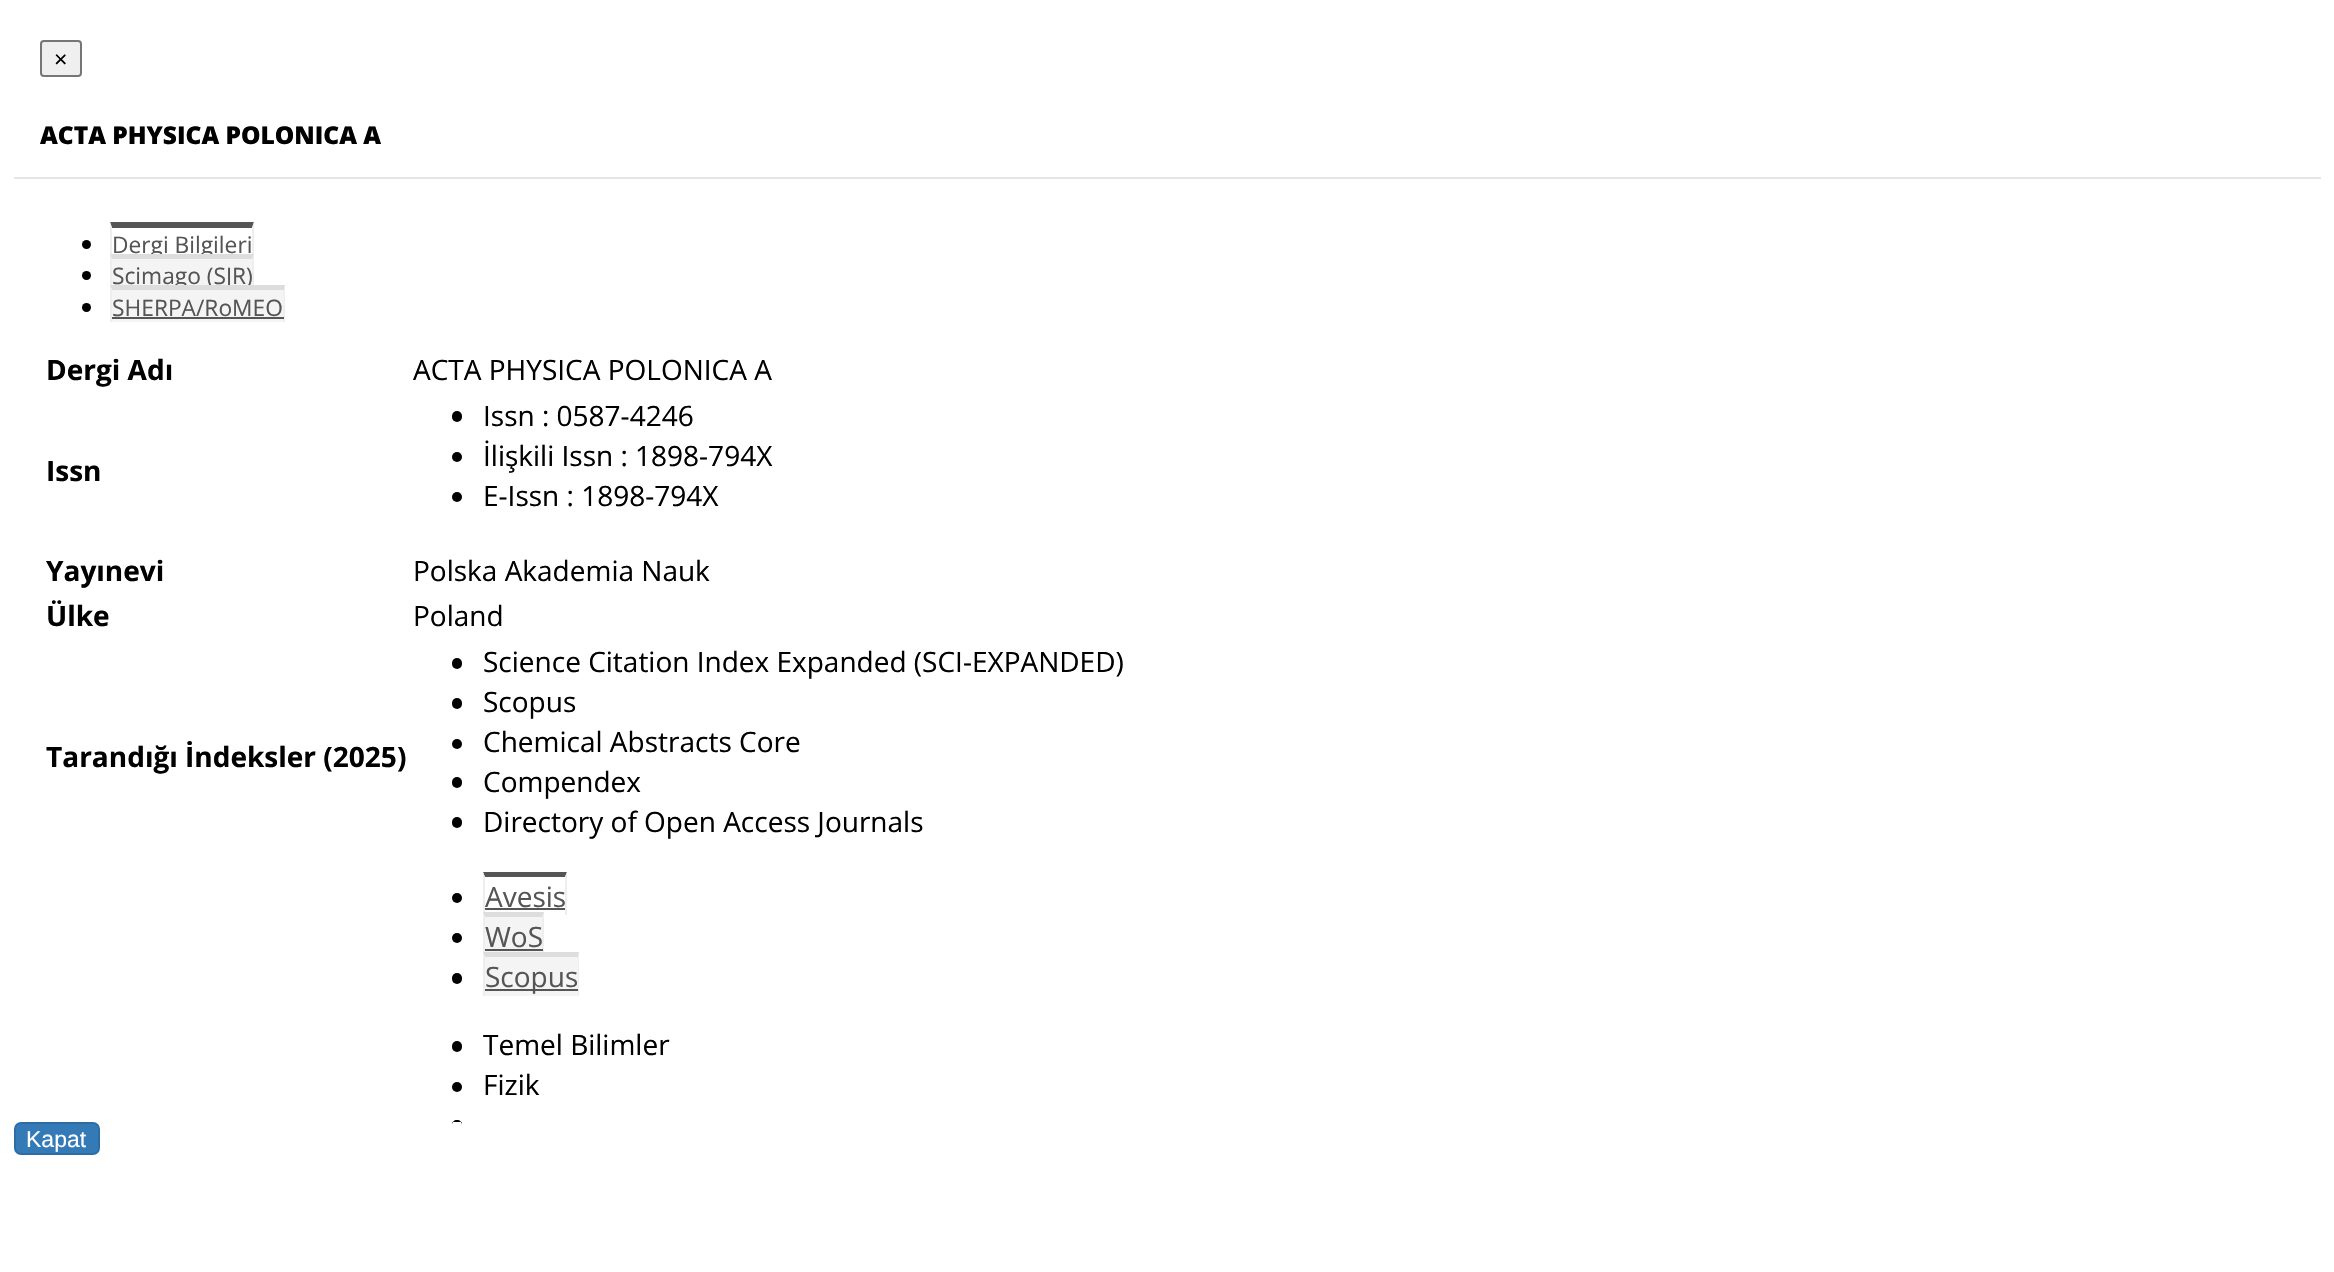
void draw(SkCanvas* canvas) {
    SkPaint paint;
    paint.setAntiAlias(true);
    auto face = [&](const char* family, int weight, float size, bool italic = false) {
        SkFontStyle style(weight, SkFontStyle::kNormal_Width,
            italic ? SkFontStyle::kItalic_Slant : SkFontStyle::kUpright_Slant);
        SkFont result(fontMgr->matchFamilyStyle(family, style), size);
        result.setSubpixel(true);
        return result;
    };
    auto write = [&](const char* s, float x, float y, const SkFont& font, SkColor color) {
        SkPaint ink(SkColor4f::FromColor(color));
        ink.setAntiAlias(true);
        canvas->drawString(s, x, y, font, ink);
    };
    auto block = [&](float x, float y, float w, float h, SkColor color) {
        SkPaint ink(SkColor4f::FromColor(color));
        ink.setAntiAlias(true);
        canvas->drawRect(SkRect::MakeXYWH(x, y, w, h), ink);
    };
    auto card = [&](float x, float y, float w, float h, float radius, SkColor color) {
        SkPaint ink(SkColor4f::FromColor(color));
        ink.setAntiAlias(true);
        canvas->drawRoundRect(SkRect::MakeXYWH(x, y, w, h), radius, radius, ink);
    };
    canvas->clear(SK_ColorWHITE);
    block(14, 177, 2307, 2, SkColorSetRGB(229, 229, 229));
    paint.setColor(SkColorSetRGB(239, 239, 239));
    canvas->drawRoundRect(SkRect::MakeXYWH(41, 41, 40, 35), 3, 3, paint);
    paint.setStyle(SkPaint::kStroke_Style);
    paint.setStrokeWidth(2);
    paint.setColor(SkColorSetRGB(118, 118, 118));
    canvas->drawRoundRect(SkRect::MakeXYWH(41, 41, 40, 35), 3, 3, paint);
    auto kFont1 = face("Liberation Sans", 400, 23);
    write("×", 54, 67, kFont1, SK_ColorBLACK);
    auto kFont2 = face("Open Sans", 800, 24.5f);
    write("ACTA PHYSICA POLONICA A", 40, 144, kFont2, SK_ColorBLACK);
    paint.setStyle(SkPaint::kFill_Style);
    paint.setColor(SK_ColorBLACK);
    canvas->drawCircle(86.5f, 244.5f, 4.5f, paint);
    auto kFont3 = face("Open Sans", 400, 22.75f);
    write("Dergi Bilgileri", 112, 253, kFont3, SkColorSetRGB(85, 85, 85));
    paint.setColor(SkColorSetRGB(85, 85, 85));
    canvas->drawPath(SkPathBuilder().moveTo(110, 222).lineTo(254, 222).lineTo(252, 228).lineTo(112, 228).close().detach(), paint);
    paint.setColor(SkColorSetRGB(238, 238, 238));
    canvas->drawPath(SkPathBuilder().moveTo(254, 222).lineTo(254, 259).lineTo(252, 259).lineTo(252, 227.5f).close().detach(), paint);
    canvas->drawPath(SkPathBuilder().moveTo(110, 259).lineTo(110, 222).lineTo(112, 227.5f).lineTo(112, 259).close().detach(), paint);
    paint.setColor(SK_ColorBLACK);
    canvas->drawCircle(86.5f, 275.5f, 4.5f, paint);
    block(110, 254, 144, 31, SkColorSetRGB(244, 244, 244));
    write("Scimago (SJR)", 112, 284, kFont3, SkColorSetRGB(85, 85, 85));
    paint.setColor(SkColorSetRGB(221, 221, 221));
    canvas->drawPath(SkPathBuilder().moveTo(110, 254).lineTo(254, 254).lineTo(252, 259).lineTo(112, 259).close().detach(), paint);
    paint.setColor(SkColorSetRGB(238, 238, 238));
    canvas->drawPath(SkPathBuilder().moveTo(254, 254).lineTo(254, 290.5f).lineTo(252, 290.5f).lineTo(252, 259).close().detach(), paint);
    canvas->drawPath(SkPathBuilder().moveTo(110, 290.5f).lineTo(110, 254).lineTo(112, 259).lineTo(112, 290.5f).close().detach(), paint);
    paint.setColor(SK_ColorBLACK);
    canvas->drawCircle(86.5f, 307.5f, 4.5f, paint);
    block(110, 285, 175, 37, SkColorSetRGB(244, 244, 244));
    write("SHERPA/RoMEO", 112, 316, kFont3, SkColorSetRGB(85, 85, 85));
    paint.setColor(SkColorSetRGB(221, 221, 221));
    canvas->drawPath(SkPathBuilder().moveTo(110, 285).lineTo(285, 285).lineTo(284, 290).lineTo(112, 290).close().detach(), paint);
    paint.setColor(SkColorSetRGB(238, 238, 238));
    canvas->drawPath(SkPathBuilder().moveTo(285, 285).lineTo(285, 322).lineTo(283.5f, 322).lineTo(283.5f, 290.5f).close().detach(), paint);
    canvas->drawPath(SkPathBuilder().moveTo(110, 322).lineTo(110, 285).lineTo(112, 290.5f).lineTo(112, 322).close().detach(), paint);
    block(112, 317, 172, 2, SkColorSetRGB(85, 85, 85));
    auto kFont4 = face("Open Sans", 700, 28);
    write("Dergi Adı", 46, 380, kFont4, SK_ColorBLACK);
    auto kFont5 = face("Open Sans", 400, 28);
    write("ACTA PHYSICA POLONICA A", 413, 380, kFont5, SK_ColorBLACK);
    write("Issn", 46, 481, kFont4, SK_ColorBLACK);
    card(452, 411, 10, 11, 5, SK_ColorBLACK);
    write("Issn : 0587-4246", 483, 426, kFont5, SK_ColorBLACK);
    paint.setColor(SK_ColorBLACK);
    canvas->drawCircle(457, 457, 5, paint);
    write("İlişkili Issn : 1898-794X", 483, 466, kFont5, SK_ColorBLACK);
    canvas->drawCircle(457, 497, 5, paint);
    write("E-Issn : 1898-794X", 483, 506, kFont5, SK_ColorBLACK);
    write("Yayınevi", 46, 581, kFont4, SK_ColorBLACK);
    write("Polska Akademia Nauk", 413, 581, kFont5, SK_ColorBLACK);
    write("Ülke", 46, 626, kFont4, SK_ColorBLACK);
    write("Poland", 413, 626, kFont5, SK_ColorBLACK);
    write("Tarandığı İndeksler (2025)", 46, 767, kFont4, SK_ColorBLACK);
    card(452, 658, 10, 11, 5, SK_ColorBLACK);
    write("Science Citation Index Expanded (SCI-EXPANDED)", 483, 672, kFont5, SK_ColorBLACK);
    card(452, 698, 10, 11, 5, SK_ColorBLACK);
    write("Scopus", 483, 712, kFont5, SK_ColorBLACK);
    canvas->drawCircle(457, 744, 5, paint);
    write("Chemical Abstracts Core", 483, 752, kFont5, SK_ColorBLACK);
    card(452, 777, 10, 11, 5, SK_ColorBLACK);
    write("Compendex", 483, 792, kFont5, SK_ColorBLACK);
    card(452, 817, 10, 11, 5, SK_ColorBLACK);
    write("Directory of Open Access Journals", 483, 832, kFont5, SK_ColorBLACK);
    canvas->drawCircle(457, 898, 5, paint);
    paint.setColor(SkColorSetRGB(85, 85, 85));
    canvas->drawPath(SkPathBuilder().moveTo(483, 872).lineTo(567, 872).lineTo(565, 877).lineTo(485, 877).close().detach(), paint);
    paint.setColor(SkColorSetRGB(238, 238, 238));
    canvas->drawPath(SkPathBuilder().moveTo(483, 915).lineTo(483, 872).lineTo(485, 877).lineTo(485, 915).close().detach(), paint);
    write("Avesis", 485, 907, kFont5, SkColorSetRGB(85, 85, 85));
    canvas->drawPath(SkPathBuilder().moveTo(567, 872).lineTo(567, 915).lineTo(565, 915).lineTo(565, 877).close().detach(), paint);
    block(485, 908, 80, 2, SkColorSetRGB(85, 85, 85));
    paint.setColor(SK_ColorBLACK);
    canvas->drawCircle(457, 938, 5, paint);
    block(483, 912, 61, 40, SkColorSetRGB(244, 244, 244));
    paint.setColor(SkColorSetRGB(221, 221, 221));
    canvas->drawPath(SkPathBuilder().moveTo(483, 912).lineTo(544, 912).lineTo(542, 917).lineTo(485, 917).close().detach(), paint);
    paint.setColor(SkColorSetRGB(238, 238, 238));
    canvas->drawPath(SkPathBuilder().moveTo(544, 912).lineTo(544, 956).lineTo(542, 956).lineTo(542, 917).close().moveTo(483, 956).lineTo(483, 912).lineTo(485, 917).lineTo(485, 956).close().detach(), paint);
    write("WoS", 485, 947, kFont5, SkColorSetRGB(85, 85, 85));
    block(485, 949, 58, 2, SkColorSetRGB(85, 85, 85));
    card(452, 973, 10, 11, 5, SK_ColorBLACK);
    block(483, 952, 96, 44, SkColorSetRGB(244, 244, 244));
    block(485, 989, 93, 2, SkColorSetRGB(85, 85, 85));
    write("Scopus", 485, 987, kFont5, SkColorSetRGB(85, 85, 85));
    paint.setColor(SkColorSetRGB(221, 221, 221));
    canvas->drawPath(SkPathBuilder().moveTo(483, 952).lineTo(579, 952).lineTo(578, 957).lineTo(485, 957).close().detach(), paint);
    paint.setColor(SkColorSetRGB(238, 238, 238));
    canvas->drawPath(SkPathBuilder().moveTo(579, 952).lineTo(579, 996).lineTo(578, 996).lineTo(578, 957).close().detach(), paint);
    canvas->drawPath(SkPathBuilder().moveTo(483, 996).lineTo(483, 952).lineTo(485, 957).lineTo(485, 996).close().detach(), paint);
    card(452, 1041, 10, 11, 5, SK_ColorBLACK);
    write("Temel Bilimler", 483, 1055, kFont5, SK_ColorBLACK);
    paint.setColor(SK_ColorBLACK);
    canvas->drawCircle(457, 1087, 5, paint);
    write("Fizik", 483, 1095, kFont5, SK_ColorBLACK);
    canvas->drawPath(SkPathBuilder().moveTo(457, 1120).cubicTo(460, 1120, 462, 1122, 462, 1125).lineTo(462, 1122).lineTo(452, 1122).lineTo(452, 1125).cubicTo(452, 1122, 454, 1120, 457, 1120).close().detach(), paint);
    paint.setColor(SkColorSetRGB(51, 122, 183));
    canvas->drawRoundRect(SkRect::MakeXYWH(15, 1123, 84, 31), 6, 6, paint);
    paint.setStyle(SkPaint::kStroke_Style);
    paint.setColor(SkColorSetRGB(46, 109, 164));
    canvas->drawRoundRect(SkRect::MakeXYWH(15, 1123, 84, 31), 6, 6, paint);
    write("Kapat", 26, 1147, kFont1, SK_ColorWHITE);
}
